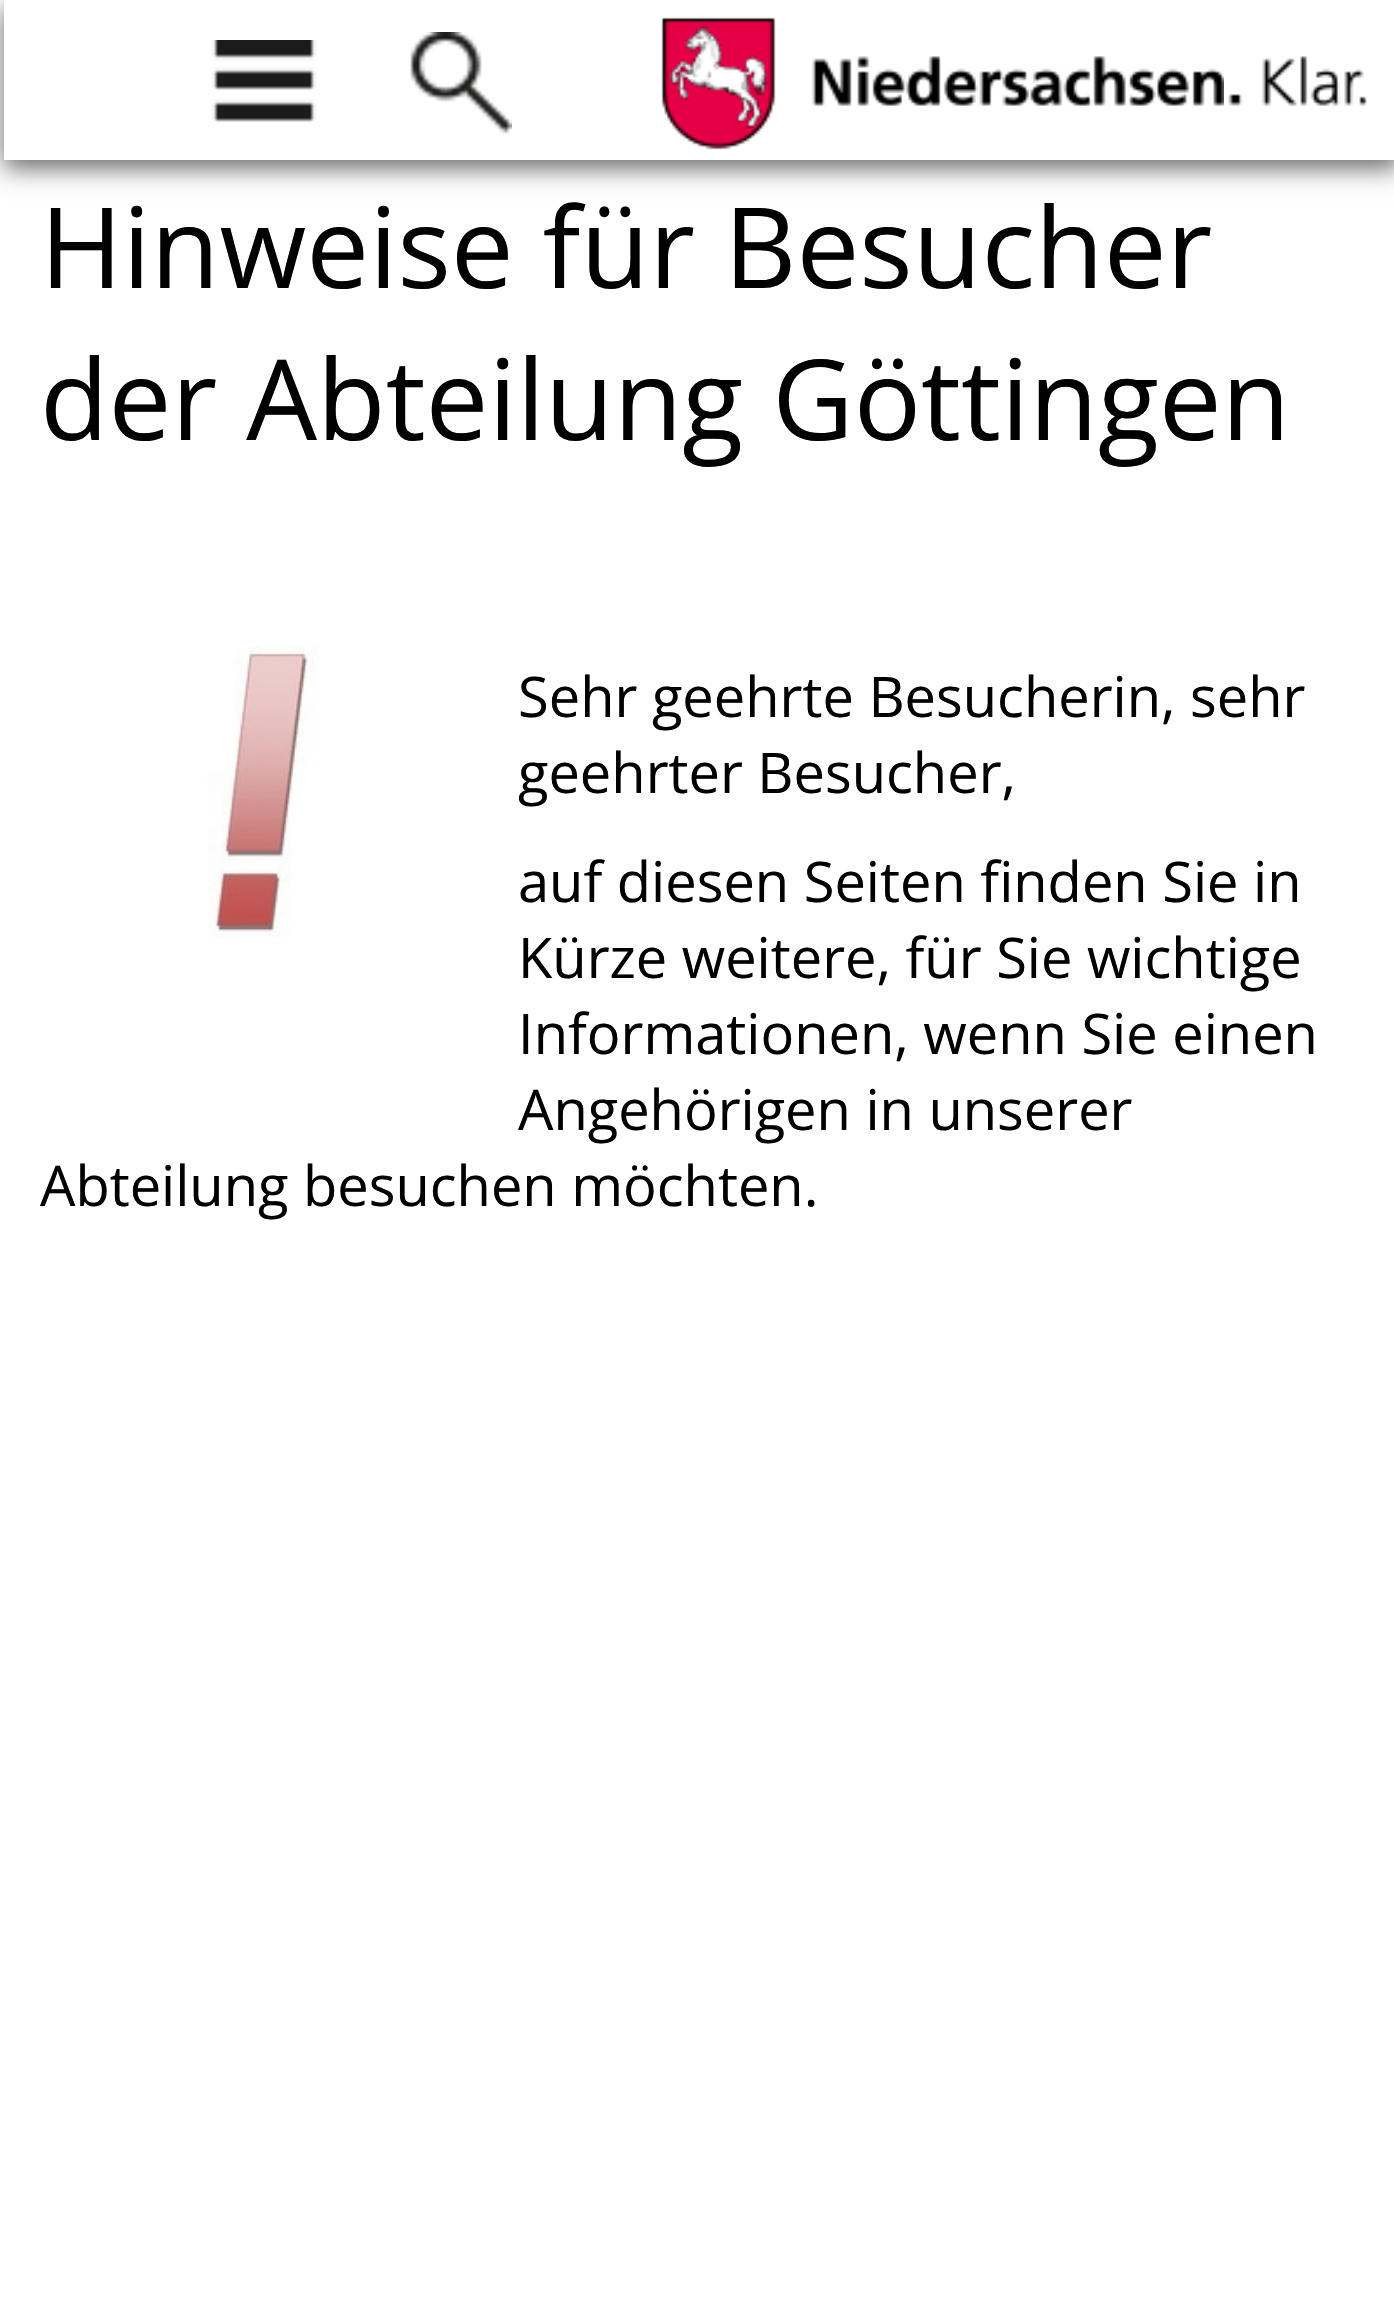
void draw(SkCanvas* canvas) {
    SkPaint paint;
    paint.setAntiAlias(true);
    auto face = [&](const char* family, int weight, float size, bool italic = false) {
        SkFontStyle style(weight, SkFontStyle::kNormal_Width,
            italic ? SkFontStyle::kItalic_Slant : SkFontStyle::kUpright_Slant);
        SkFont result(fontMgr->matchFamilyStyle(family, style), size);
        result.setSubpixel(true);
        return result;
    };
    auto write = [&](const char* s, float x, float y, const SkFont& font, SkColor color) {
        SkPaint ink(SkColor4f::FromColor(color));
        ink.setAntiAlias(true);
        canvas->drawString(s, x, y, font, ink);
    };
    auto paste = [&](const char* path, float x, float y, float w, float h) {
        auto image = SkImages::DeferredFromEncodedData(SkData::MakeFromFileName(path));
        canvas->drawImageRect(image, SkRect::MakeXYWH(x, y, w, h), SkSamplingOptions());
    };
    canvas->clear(SK_ColorWHITE);
    canvas->save();
    canvas->clipPath(SkPathBuilder(SkPathFillType::kEvenOdd).moveTo(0, 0).lineTo(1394, 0).lineTo(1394, 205).lineTo(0, 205).close().moveTo(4, 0).lineTo(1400, 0).lineTo(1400, 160).lineTo(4, 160).close().detach(), true);
    paint.setColor(SkColorSetRGB(102, 102, 102));
    paint.setMaskFilter(SkMaskFilter::MakeBlur(kNormal_SkBlurStyle, 12));
    canvas->drawRect(SkRect::MakeXYWH(4, 8, 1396, 160), paint);
    paint.setMaskFilter(nullptr);
    canvas->restore();
    paste("pic1.png", 211, 40, 106, 82);
    paste("pic2.png", 410, 32, 102, 102);
    paste("pic3.png", 661, 17, 563, 133);
    paste("pic4.png", 1228, 56, 139, 50);
    auto kFont1 = face("Open Sans", 400, 112);
    write("Hinweise für Besucher", 40, 288, kFont1, SK_ColorBLACK);
    write("der Abteilung Göttingen", 40, 440, kFont1, SK_ColorBLACK);
    paste("pic5.png", 207, 645, 112, 293);
    auto kFont2 = face("Open Sans", 400, 56);
    write("Sehr geehrte Besucherin, sehr", 518, 717, kFont2, SK_ColorBLACK);
    write("geehrter Besucher,", 518, 793, kFont2, SK_ColorBLACK);
    write("auf diesen Seiten finden Sie in", 518, 902, kFont2, SK_ColorBLACK);
    write("Kürze weitere, für Sie wichtige", 518, 978, kFont2, SK_ColorBLACK);
    write("Informationen, wenn Sie einen", 518, 1054, kFont2, SK_ColorBLACK);
    write("Angehörigen in unserer", 518, 1130, kFont2, SK_ColorBLACK);
    write("Abteilung besuchen möchten.", 40, 1206, kFont2, SK_ColorBLACK);
}
